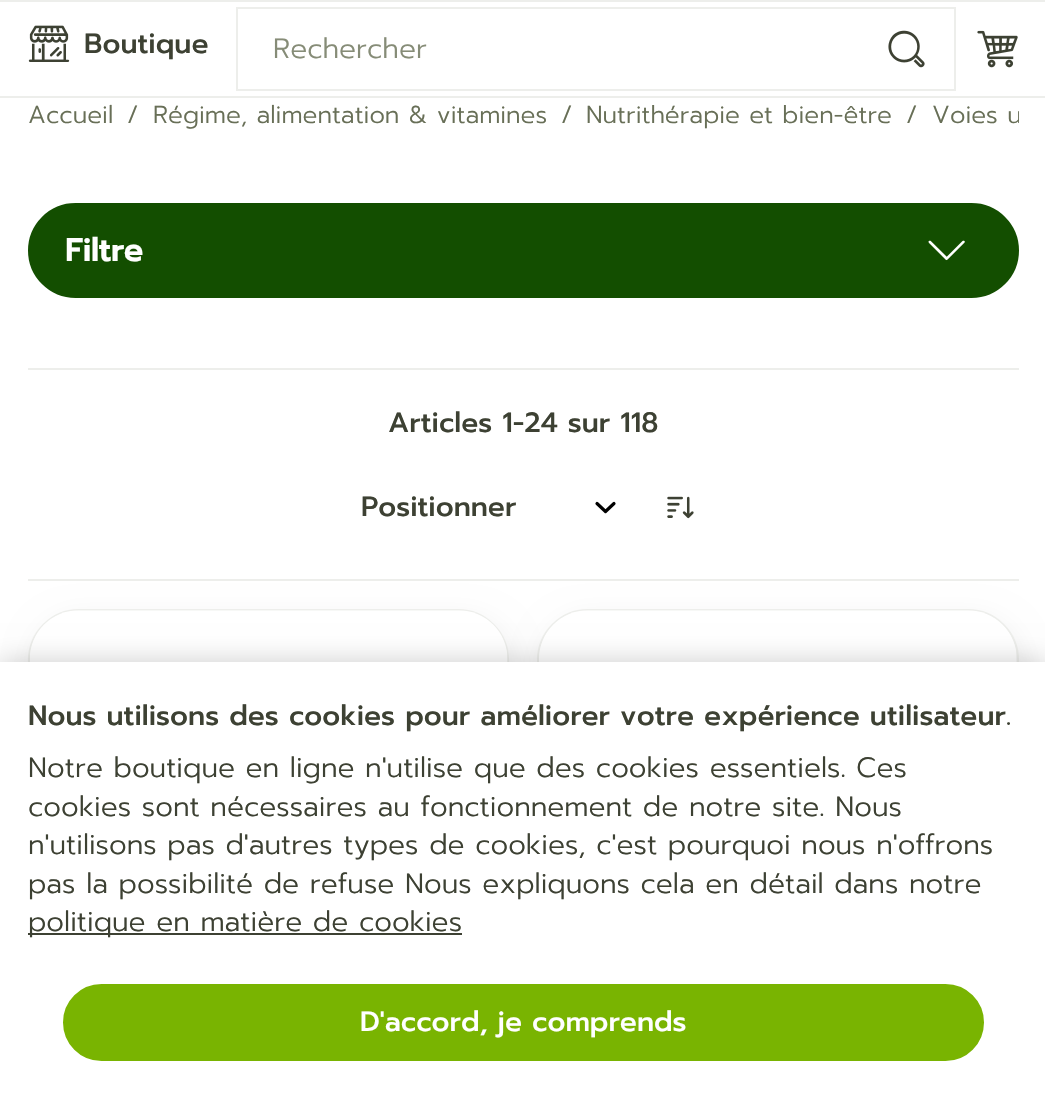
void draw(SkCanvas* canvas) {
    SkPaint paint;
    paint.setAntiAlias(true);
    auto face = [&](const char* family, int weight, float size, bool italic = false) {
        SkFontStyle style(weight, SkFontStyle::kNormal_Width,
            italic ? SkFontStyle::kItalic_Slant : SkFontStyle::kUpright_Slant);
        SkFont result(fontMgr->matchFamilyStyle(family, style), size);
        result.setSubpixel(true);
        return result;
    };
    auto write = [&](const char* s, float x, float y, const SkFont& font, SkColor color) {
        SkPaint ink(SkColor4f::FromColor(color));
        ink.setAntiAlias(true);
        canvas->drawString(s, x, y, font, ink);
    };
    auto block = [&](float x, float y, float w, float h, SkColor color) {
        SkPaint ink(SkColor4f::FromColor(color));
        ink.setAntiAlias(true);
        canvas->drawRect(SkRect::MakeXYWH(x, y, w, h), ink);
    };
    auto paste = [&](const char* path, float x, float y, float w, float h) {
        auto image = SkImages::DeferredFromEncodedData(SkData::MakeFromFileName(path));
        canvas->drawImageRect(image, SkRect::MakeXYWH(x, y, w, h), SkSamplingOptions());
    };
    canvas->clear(SK_ColorWHITE);
    block(0, 0, 1045, 2, SkColorSetRGB(237, 238, 235));
    block(0, 96, 1045, 2, SkColorSetRGB(237, 238, 235));
    paste("pic1.png", 28, 25, 42, 37);
    auto kFont1 = face("Prompt", 500, 28);
    write("Boutique", 84, 53, kFont1, SkColorSetRGB(61, 65, 51));
    paint.setStyle(SkPaint::kStroke_Style);
    paint.setStrokeWidth(2);
    paint.setColor(SkColorSetRGB(237, 238, 235));
    canvas->drawRect(SkRect::MakeXYWH(237, 8, 718, 82), paint);
    auto kFont2 = face("Prompt", 300, 28);
    write("Rechercher", 273, 58, kFont2, SkColorSetRGB(134, 140, 119));
    paste("pic2.png", 888, 30, 37, 38);
    paste("pic3.png", 977, 30, 41, 38);
    auto kFont3 = face("Prompt", 300, 24.5f);
    write("Accueil", 28, 123, kFont3, SkColorSetRGB(104, 111, 87));
    write("/", 127, 123, kFont3, SkColorSetRGB(104, 111, 87));
    write("Régime, alimentation & vitamines", 153, 123, kFont3, SkColorSetRGB(104, 111, 87));
    write("/", 561, 123, kFont3, SkColorSetRGB(104, 111, 87));
    write("Nutrithérapie et bien-être", 586, 123, kFont3, SkColorSetRGB(104, 111, 87));
    write("/", 906, 123, kFont3, SkColorSetRGB(104, 111, 87));
    canvas->save();
    canvas->clipPath(SkPathBuilder().moveTo(35, 70).lineTo(1012, 70).cubicTo(1016, 70, 1019, 73, 1019, 77).lineTo(1019, 154).cubicTo(1019, 158, 1016, 161, 1012, 161).lineTo(35, 161).cubicTo(31, 161, 28, 158, 28, 154).lineTo(28, 77).cubicTo(28, 73, 31, 70, 35, 70).close().detach(), true);
    write("Voies u", 932, 123, kFont3, SkColorSetRGB(104, 111, 87));
    canvas->restore();
    paint.setStyle(SkPaint::kFill_Style);
    paint.setColor(SkColorSetRGB(19, 78, 0));
    canvas->drawRoundRect(SkRect::MakeXYWH(29, 204, 989, 93), 46.5f, 46.5f, paint);
    paint.setStyle(SkPaint::kStroke_Style);
    canvas->drawRoundRect(SkRect::MakeXYWH(29, 204, 989, 93), 46.5f, 46.5f, paint);
    auto kFont4 = face("Prompt", 700, 31.5f);
    write("Filtre", 65, 261, kFont4, SK_ColorWHITE);
    paste("pic4.png", 928, 240, 37, 21);
    block(28, 368, 991, 2, SkColorSetRGB(237, 238, 235));
    write("Articles 1-24 sur 118", 388, 432, kFont1, SkColorSetRGB(61, 65, 51));
    paint.setStrokeWidth(3.2f);
    paint.setStrokeCap(SkPaint::kRound_Cap);
    paint.setStrokeJoin(SkPaint::kRound_Join);
    paint.setColor(SK_ColorBLACK);
    canvas->drawPath(SkPathBuilder().moveTo(597, 503.5f).lineTo(605.5f, 511.5f).lineTo(614, 503.5f).detach(), paint);
    write("Positionner", 361, 516, kFont1, SkColorSetRGB(61, 65, 51));
    paste("pic5.png", 667, 496, 27, 23);
    block(28, 579, 991, 2, SkColorSetRGB(237, 238, 235));
    paint.setStyle(SkPaint::kFill_Style);
    paint.setColor(SkColorSetARGB(13, 0, 0, 0));
    paint.setMaskFilter(SkMaskFilter::MakeBlur(kNormal_SkBlurStyle, 14));
    canvas->drawRoundRect(SkRect::MakeXYWH(32, 616, 481, 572), 51, 51, paint);
    paint.setMaskFilter(nullptr);
    paint.setStyle(SkPaint::kStroke_Style);
    paint.setStrokeWidth(2);
    paint.setStrokeCap(SkPaint::kButt_Cap);
    paint.setStrokeJoin(SkPaint::kMiter_Join);
    paint.setColor(SkColorSetRGB(237, 238, 235));
    canvas->drawRoundRect(SkRect::MakeXYWH(29, 610, 479, 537), 50, 50, paint);
    paste("pic6.png", 30, 610, 478, 52);
    paint.setStyle(SkPaint::kFill_Style);
    paint.setColor(SkColorSetARGB(13, 0, 0, 0));
    paint.setMaskFilter(SkMaskFilter::MakeBlur(kNormal_SkBlurStyle, 14));
    canvas->drawRoundRect(SkRect::MakeXYWH(541, 616, 481, 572), 51, 51, paint);
    paint.setMaskFilter(nullptr);
    paint.setStyle(SkPaint::kStroke_Style);
    paint.setColor(SkColorSetRGB(237, 238, 235));
    canvas->drawRoundRect(SkRect::MakeXYWH(538, 610, 480, 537), 50, 50, paint);
    paste("pic7.png", 539, 610, 477, 52);
    paint.setStyle(SkPaint::kFill_Style);
    paint.setColor(SkColorSetARGB(51, 0, 0, 0));
    paint.setMaskFilter(SkMaskFilter::MakeBlur(kNormal_SkBlurStyle, 13));
    canvas->drawRect(SkRect::MakeXYWH(0, 662, 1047, 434), paint);
    paint.setMaskFilter(nullptr);
    block(0, 662, 1045, 433, SK_ColorWHITE);
    write("Nous utilisons des cookies pour améliorer votre expérience utilisateur.", 28, 725, kFont1, SkColorSetRGB(61, 65, 51));
    write("Notre boutique en ligne n'utilise que des cookies essentiels. Ces", 28, 777, kFont2, SkColorSetRGB(61, 65, 51));
    write("cookies sont nécessaires au fonctionnement de notre site. Nous", 28, 816, kFont2, SkColorSetRGB(61, 65, 51));
    write("n'utilisons pas d'autres types de cookies, c'est pourquoi nous n'offrons", 28, 854, kFont2, SkColorSetRGB(61, 65, 51));
    write("pas la possibilité de refuse Nous expliquons cela en détail dans notre", 28, 893, kFont2, SkColorSetRGB(61, 65, 51));
    block(28, 933, 434, 2, SkColorSetRGB(61, 65, 51));
    write("politique en matière de cookies", 28, 931, kFont2, SkColorSetRGB(61, 65, 51));
    paint.setColor(SkColorSetRGB(121, 180, 1));
    canvas->drawRoundRect(SkRect::MakeXYWH(64, 985, 919, 75), 37.5f, 37.5f, paint);
    paint.setStyle(SkPaint::kStroke_Style);
    canvas->drawRoundRect(SkRect::MakeXYWH(64, 985, 919, 75), 37.5f, 37.5f, paint);
    write("D'accord, je comprends", 360, 1031, kFont1, SK_ColorWHITE);
}
